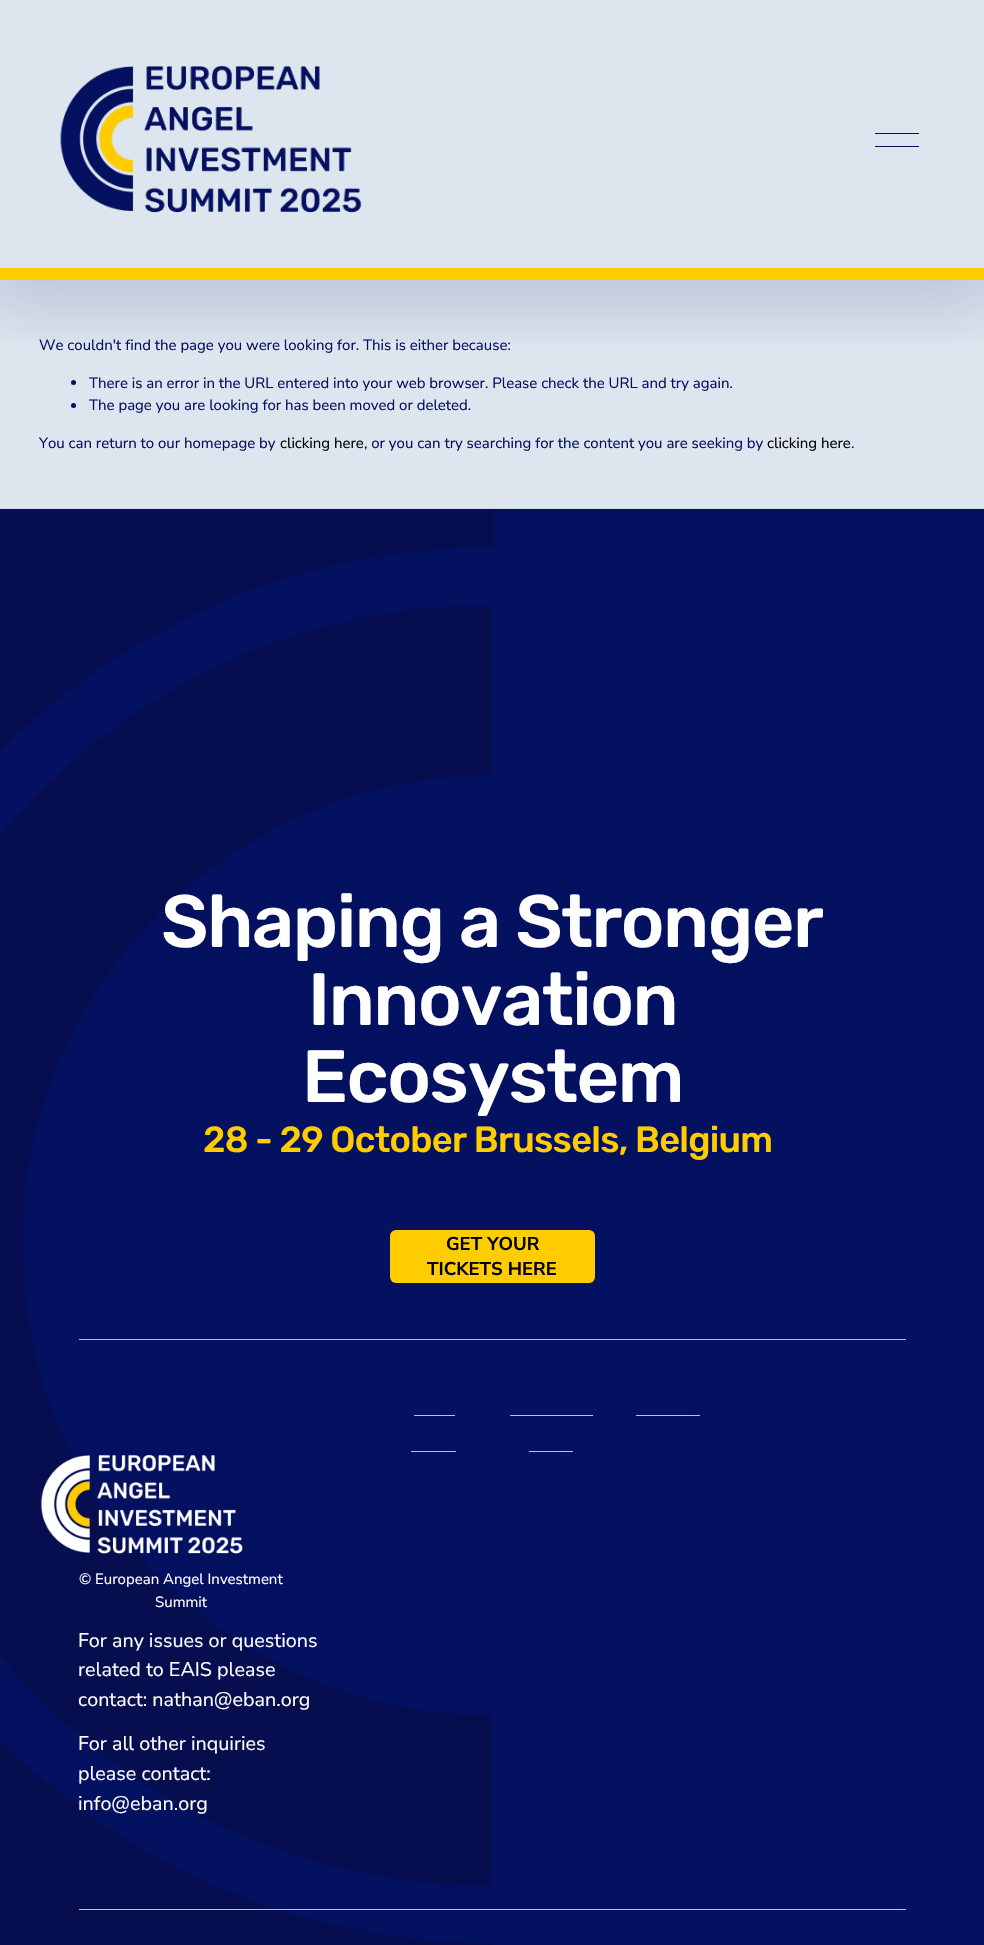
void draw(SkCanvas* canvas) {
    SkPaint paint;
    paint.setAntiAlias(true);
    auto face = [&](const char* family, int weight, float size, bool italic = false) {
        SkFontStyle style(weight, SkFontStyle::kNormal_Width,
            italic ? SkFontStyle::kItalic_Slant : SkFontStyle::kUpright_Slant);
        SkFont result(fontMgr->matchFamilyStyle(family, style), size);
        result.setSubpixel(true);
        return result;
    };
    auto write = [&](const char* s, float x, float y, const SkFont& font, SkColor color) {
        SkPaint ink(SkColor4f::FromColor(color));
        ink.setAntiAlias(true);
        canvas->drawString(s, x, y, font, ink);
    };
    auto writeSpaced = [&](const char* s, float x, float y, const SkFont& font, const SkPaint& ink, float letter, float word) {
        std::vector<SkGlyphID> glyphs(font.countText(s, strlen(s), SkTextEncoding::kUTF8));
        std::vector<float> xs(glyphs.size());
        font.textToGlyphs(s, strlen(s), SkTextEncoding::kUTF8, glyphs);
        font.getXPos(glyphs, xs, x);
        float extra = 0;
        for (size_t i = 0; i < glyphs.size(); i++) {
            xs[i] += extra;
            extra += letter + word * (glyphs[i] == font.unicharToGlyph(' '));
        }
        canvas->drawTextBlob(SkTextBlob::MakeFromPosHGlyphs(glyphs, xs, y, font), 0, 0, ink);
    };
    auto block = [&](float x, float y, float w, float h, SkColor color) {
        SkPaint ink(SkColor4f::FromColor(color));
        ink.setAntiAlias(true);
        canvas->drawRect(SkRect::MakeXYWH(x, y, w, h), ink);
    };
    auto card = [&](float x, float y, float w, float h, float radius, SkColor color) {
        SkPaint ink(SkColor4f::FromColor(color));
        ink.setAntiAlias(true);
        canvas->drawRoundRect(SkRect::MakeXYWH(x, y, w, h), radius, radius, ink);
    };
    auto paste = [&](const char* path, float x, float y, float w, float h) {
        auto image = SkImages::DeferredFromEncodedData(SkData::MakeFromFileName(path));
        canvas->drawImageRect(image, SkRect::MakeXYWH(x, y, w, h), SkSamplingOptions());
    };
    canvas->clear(SkColorSetRGB(221, 229, 239));
    paint.setColor(SkColorSetRGB(4, 16, 96));
    canvas->drawCircle(73.5f, 382.5f, 2.5f, paint);
    canvas->save();
    canvas->clipRect(SkRect::MakeXYWH(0, 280, 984, 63));
    paint.setColor(SkColorSetARGB(38, 4, 16, 96));
    paint.setMaskFilter(SkMaskFilter::MakeBlur(kNormal_SkBlurStyle, 30));
    canvas->drawRect(SkRect::MakeXYWH(-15, 0, 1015, 310), paint);
    paint.setMaskFilter(nullptr);
    canvas->restore();
    paste("pic1.png", 60, 66, 302, 147);
    block(875, 133, 44, 1, SkColorSetRGB(4, 16, 96));
    block(875, 146, 44, 1, SkColorSetRGB(4, 16, 96));
    block(0, 268, 984, 12, SkColorSetRGB(255, 204, 0));
    auto kFont1 = face("Nunito Sans", 400, 15);
    write("We couldn't find the page you were looking for. This is either because:", 39, 350, kFont1, SkColorSetRGB(4, 16, 96));
    write("There is an error in the URL entered into your web browser. Please check the URL and try again.", 89, 388, kFont1, SkColorSetRGB(4, 16, 96));
    paint.setColor(SkColorSetRGB(4, 16, 96));
    canvas->drawCircle(73.5f, 405.5f, 2.5f, paint);
    write("The page you are looking for has been moved or deleted.", 89, 410, kFont1, SkColorSetRGB(4, 16, 96));
    write("You can return to our homepage by", 39, 448, kFont1, SkColorSetRGB(4, 16, 96));
    write("clicking here", 280, 448, kFont1, SK_ColorBLACK);
    write(", or you can try searching for the content you are seeking by", 364, 448, kFont1, SkColorSetRGB(4, 16, 96));
    write("clicking here", 767, 448, kFont1, SK_ColorBLACK);
    write(".", 851, 448, kFont1, SkColorSetRGB(4, 16, 96));
    paste("pic2.png", 0, 508, 984, 1437);
    auto kFont2 = face("Rubik", 500, 74);
    paint.setColor(SK_ColorWHITE);
    writeSpaced("Shaping a Stronger", 161, 947, kFont2, paint, -1.5f, 0);
    writeSpaced("Innovation", 308, 1025, kFont2, paint, -1.5f, 0);
    writeSpaced("Ecosystem", 302, 1102, kFont2, paint, -1.5f, 0);
    auto kFont3 = face("Rubik", 500, 36.25f);
    paint.setColor(SkColorSetRGB(255, 204, 0));
    writeSpaced("28 - 29 October Brussels, Belgium", 203, 1152, kFont3, paint, -0.75f, 0);
    card(390, 1230, 205, 53, 6, SkColorSetRGB(255, 204, 0));
    auto kFont4 = face("Nunito Sans", 700, 18.5f);
    write("GET YOUR", 446, 1250, kFont4, SK_ColorBLACK);
    write("TICKETS HERE", 427, 1275, kFont4, SK_ColorBLACK);
    block(79, 1339, 827, 1, SkColorSetRGB(255, 204, 0));
    block(414, 1415, 41, 1, SkColorSetRGB(255, 204, 0));
    block(510, 1415, 83, 1, SkColorSetRGB(255, 204, 0));
    block(636, 1415, 64, 1, SkColorSetRGB(255, 204, 0));
    block(411, 1451, 45, 1, SkColorSetRGB(255, 204, 0));
    block(529, 1451, 44, 1, SkColorSetRGB(255, 204, 0));
    paste("pic3.png", 40, 1455, 203, 99);
    write("© European Angel Investment", 79, 1584, kFont1, SK_ColorWHITE);
    write("Summit", 155, 1607, kFont1, SK_ColorWHITE);
    auto kFont5 = face("Nunito Sans", 400, 19.75f);
    write("For any issues or questions", 78, 1647, kFont5, SK_ColorWHITE);
    write("related to EAIS please", 78, 1676, kFont5, SK_ColorWHITE);
    write("contact: nathan@eban.org", 78, 1706, kFont5, SK_ColorWHITE);
    write("For all other inquiries", 78, 1750, kFont5, SK_ColorWHITE);
    write("please contact:", 78, 1780, kFont5, SK_ColorWHITE);
    write("info@eban.org", 78, 1810, kFont5, SK_ColorWHITE);
    block(79, 1909, 827, 1, SkColorSetRGB(255, 204, 0));
}
